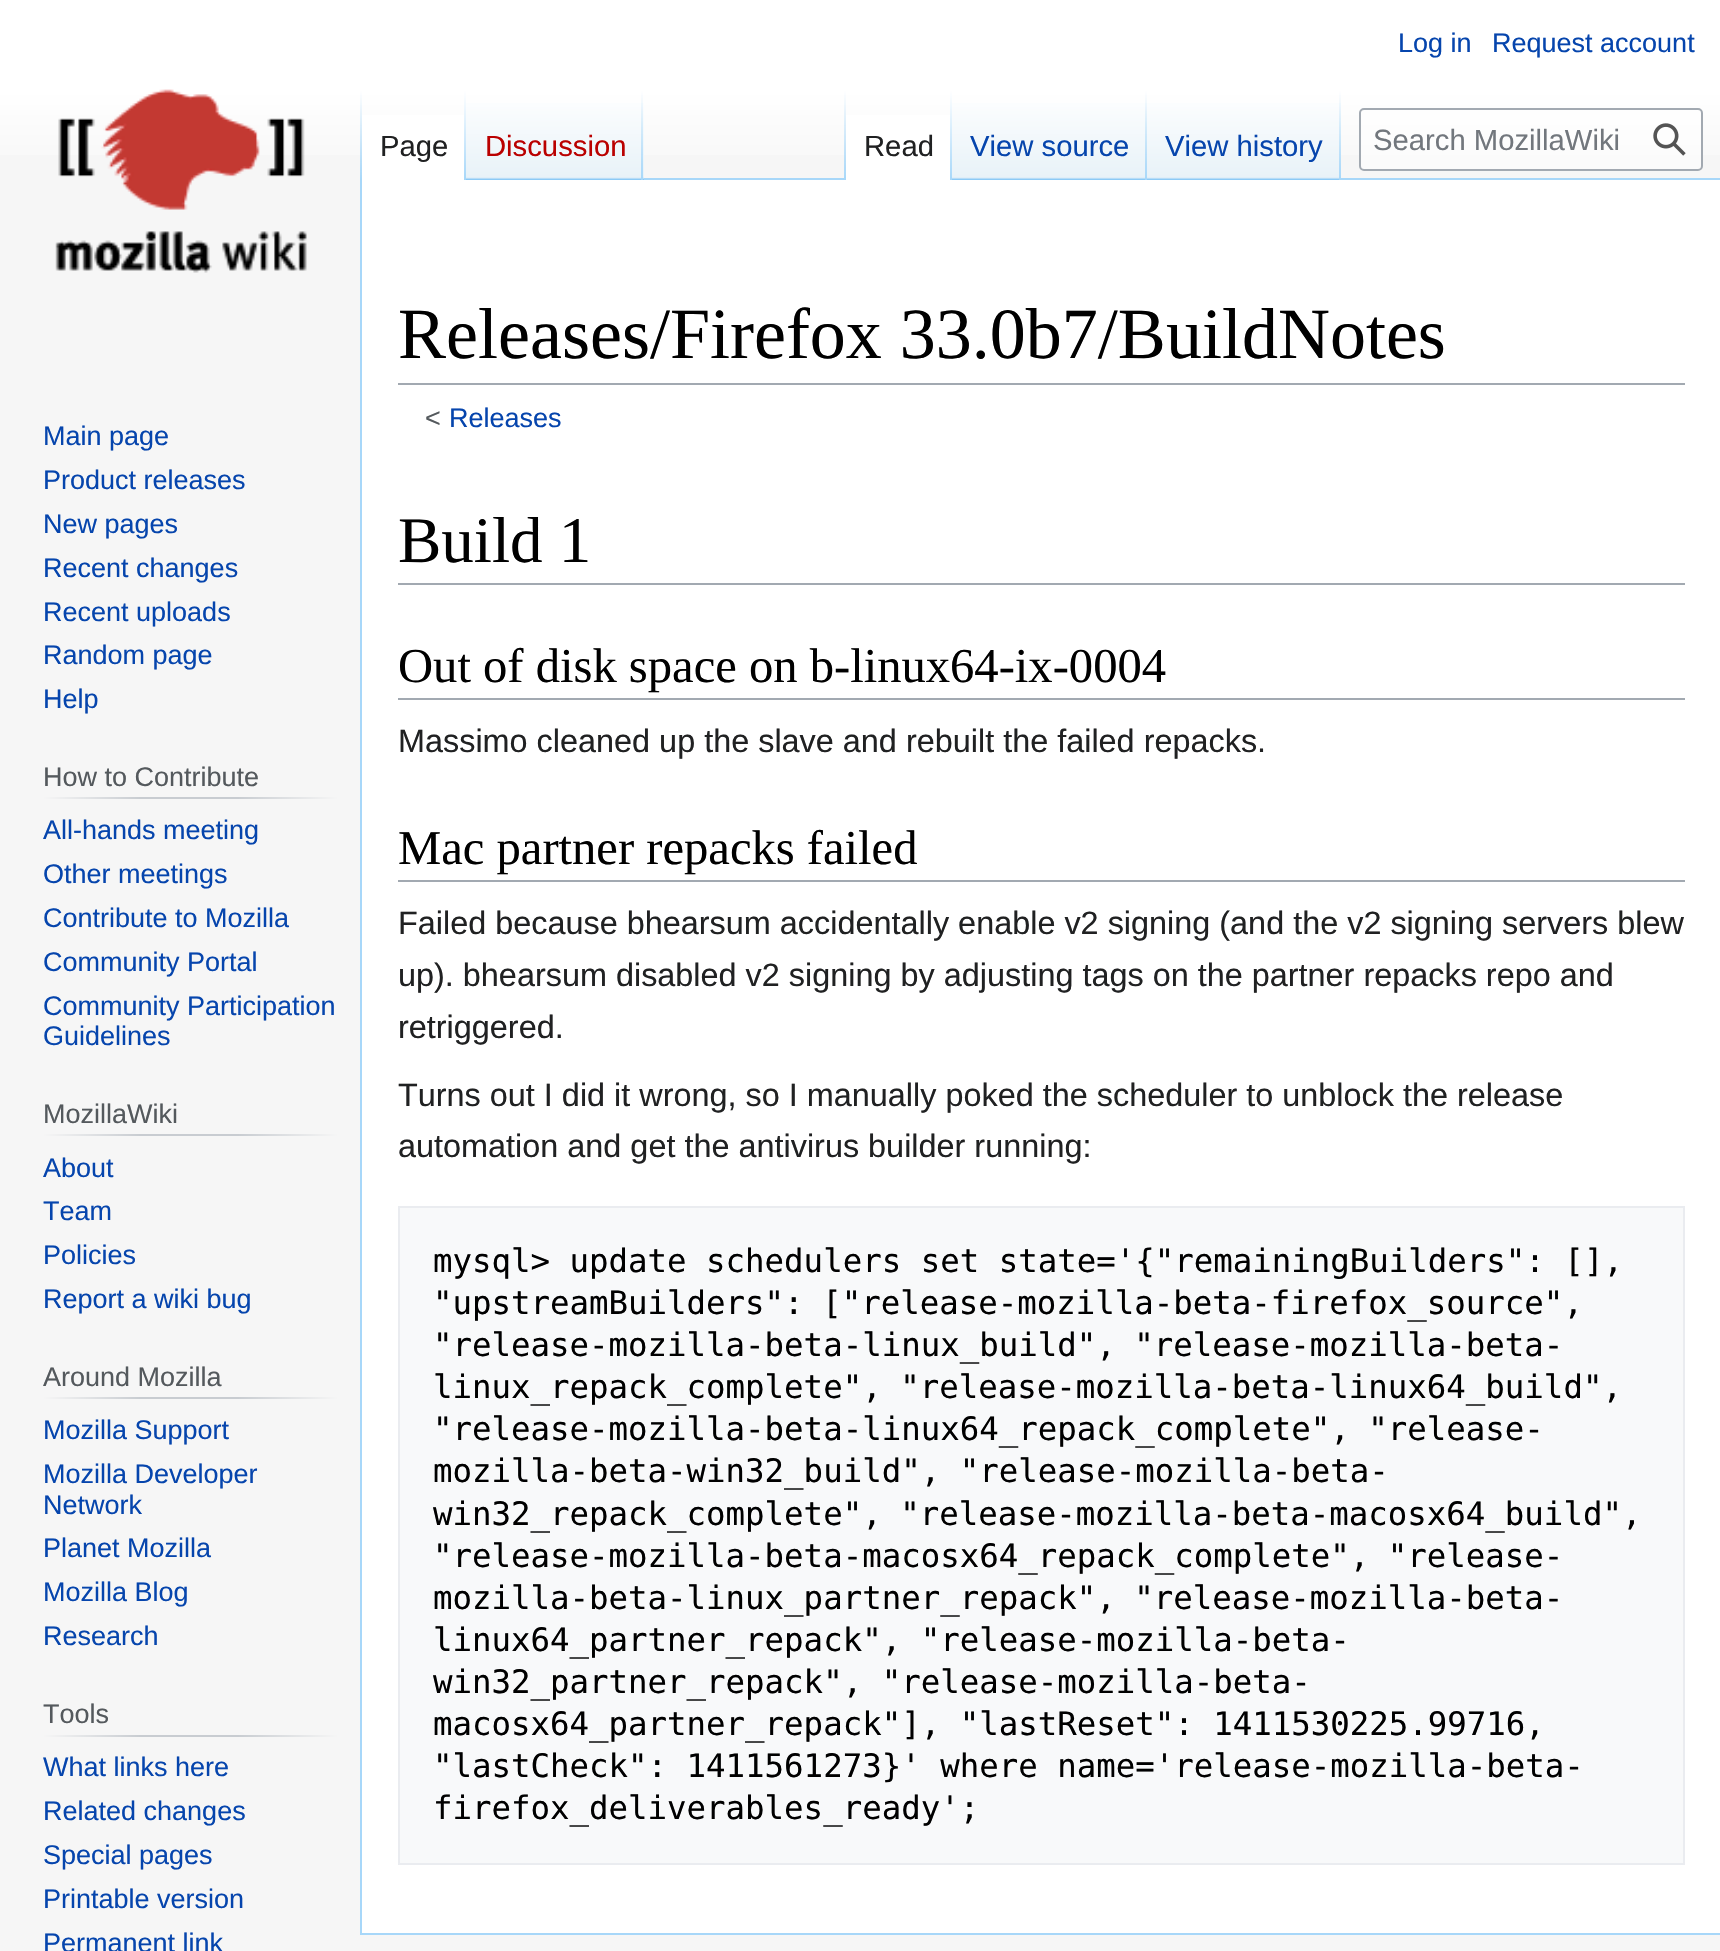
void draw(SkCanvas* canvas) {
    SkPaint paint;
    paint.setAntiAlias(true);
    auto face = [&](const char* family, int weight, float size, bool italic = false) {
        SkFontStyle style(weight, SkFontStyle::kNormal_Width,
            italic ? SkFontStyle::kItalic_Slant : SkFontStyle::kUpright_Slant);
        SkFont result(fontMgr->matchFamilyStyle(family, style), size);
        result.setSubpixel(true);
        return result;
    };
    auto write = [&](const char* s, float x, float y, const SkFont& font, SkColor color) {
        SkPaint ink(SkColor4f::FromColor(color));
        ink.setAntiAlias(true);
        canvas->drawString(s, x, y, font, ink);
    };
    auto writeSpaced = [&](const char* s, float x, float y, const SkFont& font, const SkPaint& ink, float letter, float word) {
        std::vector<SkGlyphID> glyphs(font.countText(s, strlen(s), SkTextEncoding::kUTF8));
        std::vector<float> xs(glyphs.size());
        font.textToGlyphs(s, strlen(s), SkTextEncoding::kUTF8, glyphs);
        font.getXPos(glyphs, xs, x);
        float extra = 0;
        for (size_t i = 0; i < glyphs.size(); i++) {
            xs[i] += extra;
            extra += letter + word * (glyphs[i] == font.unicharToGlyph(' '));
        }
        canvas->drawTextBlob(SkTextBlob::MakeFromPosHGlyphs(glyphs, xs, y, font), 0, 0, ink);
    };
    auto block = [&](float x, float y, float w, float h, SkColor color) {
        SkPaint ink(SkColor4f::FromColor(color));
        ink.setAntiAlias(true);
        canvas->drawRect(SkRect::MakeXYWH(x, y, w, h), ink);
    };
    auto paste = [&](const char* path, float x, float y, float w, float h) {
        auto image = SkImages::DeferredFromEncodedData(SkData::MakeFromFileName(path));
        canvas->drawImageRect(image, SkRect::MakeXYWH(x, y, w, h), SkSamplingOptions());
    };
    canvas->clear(SkColorSetRGB(246, 246, 246));
    {
        const SkColor colors[] = {SK_ColorWHITE, SkColorSetRGB(246, 246, 246)};
        const float stops[] = {0.5f, 1};
        const SkPoint ends[] = {{861, 0}, {861, 180}};
        paint.setShader(SkGradientShader::MakeLinear(ends, colors, stops, 2, SkTileMode::kClamp));
        paint.setAlpha(255);
    }
    canvas->drawRect(SkRect::MakeXYWH(0, 0, 1720, 155), paint);
    auto kFont1 = face("Liberation Sans", 400, 27);
    write("Log in", 1398, 52, kFont1, SkColorSetRGB(6, 69, 173));
    write("Request account", 1492, 52, kFont1, SkColorSetRGB(6, 69, 173));
    block(360, 1933, 1360, 2, SkColorSetRGB(167, 215, 249));
    block(360, 178, 2, 1757, SkColorSetRGB(167, 215, 249));
    {
        const SkColor colors[] = {SkColorSetARGB(0, 167, 215, 249), SkColorSetRGB(167, 215, 249)};
        const float stops[] = {0, 1};
        const SkPoint ends[] = {{361, 90}, {361, 180}};
        paint.setShader(SkGradientShader::MakeLinear(ends, colors, stops, 2, SkTileMode::kClamp));
        paint.setAlpha(255);
    }
    canvas->drawRect(SkRect::MakeXYWH(360, 90, 2, 90), paint);
    block(362, 115, 102, 65, SK_ColorWHITE);
    {
        const SkColor colors[] = {SK_ColorWHITE, SkColorSetRGB(167, 215, 249)};
        const float stops[] = {0, 1};
        const SkPoint ends[] = {{465, 90}, {465, 180}};
        paint.setShader(SkGradientShader::MakeLinear(ends, colors, stops, 2, SkTileMode::kClamp));
        paint.setAlpha(255);
    }
    canvas->drawRect(SkRect::MakeXYWH(464, 90, 2, 90), paint);
    auto kFont2 = face("Liberation Sans", 400, 29.25f);
    write("Page", 380, 156, kFont2, SkColorSetRGB(32, 33, 34));
    {
        const SkColor colors[] = {SkColorSetRGB(119, 193, 246), SkColorSetRGB(232, 242, 248), SK_ColorWHITE};
        const float stops[] = {0, 0.03f, 1};
        const SkPoint ends[] = {{555, 180}, {555, 90}};
        paint.setShader(SkGradientShader::MakeLinear(ends, colors, stops, 3, SkTileMode::kClamp));
        paint.setAlpha(255);
    }
    canvas->drawRect(SkRect::MakeXYWH(466, 103, 178, 77), paint);
    {
        const SkColor colors[] = {SkColorSetARGB(0, 167, 215, 249), SkColorSetRGB(167, 215, 249)};
        const float stops[] = {0, 1};
        const SkPoint ends[] = {{642, 90}, {642, 180}};
        paint.setShader(SkGradientShader::MakeLinear(ends, colors, stops, 2, SkTileMode::kClamp));
        paint.setAlpha(255);
    }
    canvas->drawRect(SkRect::MakeXYWH(641, 90, 2, 90), paint);
    write("Discussion", 485, 156, kFont2, SkColorSetRGB(186, 0, 0));
    block(644, 178, 1076, 2, SkColorSetRGB(167, 215, 249));
    {
        const SkColor colors[] = {SkColorSetARGB(0, 167, 215, 249), SkColorSetRGB(167, 215, 249)};
        const float stops[] = {0, 1};
        const SkPoint ends[] = {{845, 90}, {845, 180}};
        paint.setShader(SkGradientShader::MakeLinear(ends, colors, stops, 2, SkTileMode::kClamp));
        paint.setAlpha(255);
    }
    canvas->drawRect(SkRect::MakeXYWH(844, 90, 2, 90), paint);
    block(846, 115, 104, 65, SK_ColorWHITE);
    {
        const SkColor colors[] = {SK_ColorWHITE, SkColorSetRGB(167, 215, 249)};
        const float stops[] = {0, 1};
        const SkPoint ends[] = {{951, 90}, {951, 180}};
        paint.setShader(SkGradientShader::MakeLinear(ends, colors, stops, 2, SkTileMode::kClamp));
        paint.setAlpha(255);
    }
    canvas->drawRect(SkRect::MakeXYWH(950, 90, 2, 90), paint);
    write("Read", 864, 156, kFont2, SkColorSetRGB(32, 33, 34));
    {
        const SkColor colors[] = {SkColorSetRGB(119, 193, 246), SkColorSetRGB(232, 242, 248), SK_ColorWHITE};
        const float stops[] = {0, 0.03f, 1};
        const SkPoint ends[] = {{1050, 180}, {1050, 90}};
        paint.setShader(SkGradientShader::MakeLinear(ends, colors, stops, 3, SkTileMode::kClamp));
        paint.setAlpha(255);
    }
    canvas->drawRect(SkRect::MakeXYWH(952, 103, 196, 77), paint);
    {
        const SkColor colors[] = {SkColorSetARGB(0, 167, 215, 249), SkColorSetRGB(167, 215, 249)};
        const float stops[] = {0, 1};
        const SkPoint ends[] = {{1146, 90}, {1146, 180}};
        paint.setShader(SkGradientShader::MakeLinear(ends, colors, stops, 2, SkTileMode::kClamp));
        paint.setAlpha(255);
    }
    canvas->drawRect(SkRect::MakeXYWH(1145, 90, 2, 90), paint);
    write("View source", 970, 156, kFont2, SkColorSetRGB(6, 69, 173));
    {
        const SkColor colors[] = {SkColorSetRGB(119, 193, 246), SkColorSetRGB(232, 242, 248), SK_ColorWHITE};
        const float stops[] = {0, 0.03f, 1};
        const SkPoint ends[] = {{1244, 180}, {1244, 90}};
        paint.setShader(SkGradientShader::MakeLinear(ends, colors, stops, 3, SkTileMode::kClamp));
        paint.setAlpha(255);
    }
    canvas->drawRect(SkRect::MakeXYWH(1148, 103, 193, 77), paint);
    {
        const SkColor colors[] = {SkColorSetARGB(0, 167, 215, 249), SkColorSetRGB(167, 215, 249)};
        const float stops[] = {0, 1};
        const SkPoint ends[] = {{1340, 90}, {1340, 180}};
        paint.setShader(SkGradientShader::MakeLinear(ends, colors, stops, 2, SkTileMode::kClamp));
        paint.setAlpha(255);
    }
    canvas->drawRect(SkRect::MakeXYWH(1339, 90, 2, 90), paint);
    write("View history", 1165, 156, kFont2, SkColorSetRGB(6, 69, 173));
    paint.setShader(nullptr);
    paint.setColor(SkColorSetARGB(128, 255, 255, 255));
    canvas->drawRoundRect(SkRect::MakeXYWH(1360, 109, 342, 61), 4, 4, paint);
    paint.setStyle(SkPaint::kStroke_Style);
    paint.setStrokeWidth(2);
    paint.setColor(SkColorSetRGB(162, 169, 177));
    canvas->drawRoundRect(SkRect::MakeXYWH(1360, 109, 342, 61), 4, 4, paint);
    write("Search MozillaWiki", 1373, 150, kFont2, SkColorSetRGB(114, 119, 125));
    paste("pic1.png", 1653, 123, 33, 33);
    paste("pic2.png", 55, 89, 252, 184);
    write("Main page", 43, 445, kFont1, SkColorSetRGB(6, 69, 173));
    write("Product releases", 43, 489, kFont1, SkColorSetRGB(6, 69, 173));
    write("New pages", 43, 533, kFont1, SkColorSetRGB(6, 69, 173));
    write("Recent changes", 43, 577, kFont1, SkColorSetRGB(6, 69, 173));
    write("Recent uploads", 43, 621, kFont1, SkColorSetRGB(6, 69, 173));
    write("Random page", 43, 664, kFont1, SkColorSetRGB(6, 69, 173));
    write("Help", 43, 708, kFont1, SkColorSetRGB(6, 69, 173));
    paint.setStyle(SkPaint::kFill_Style);
    {
        const SkColor colors[] = {SkColorSetRGB(246, 246, 246), SkColorSetRGB(200, 204, 209), SkColorSetRGB(200, 204, 209), SkColorSetRGB(246, 246, 246)};
        const float stops[] = {0, 0.33f, 0.66f, 1};
        const SkPoint ends[] = {{43, 798}, {338, 798}};
        paint.setShader(SkGradientShader::MakeLinear(ends, colors, stops, 4, SkTileMode::kClamp));
        paint.setAlpha(255);
    }
    canvas->drawRect(SkRect::MakeXYWH(43, 797, 295, 2), paint);
    write("How to Contribute", 43, 786, kFont1, SkColorSetRGB(84, 89, 93));
    write("All-hands meeting", 43, 839, kFont1, SkColorSetRGB(6, 69, 173));
    write("Other meetings", 43, 883, kFont1, SkColorSetRGB(6, 69, 173));
    write("Contribute to Mozilla", 43, 927, kFont1, SkColorSetRGB(6, 69, 173));
    write("Community Portal", 43, 971, kFont1, SkColorSetRGB(6, 69, 173));
    write("Community Participation", 43, 1015, kFont1, SkColorSetRGB(6, 69, 173));
    write("Guidelines", 43, 1045, kFont1, SkColorSetRGB(6, 69, 173));
    {
        const SkColor colors[] = {SkColorSetRGB(246, 246, 246), SkColorSetRGB(200, 204, 209), SkColorSetRGB(200, 204, 209), SkColorSetRGB(246, 246, 246)};
        const float stops[] = {0, 0.33f, 0.66f, 1};
        const SkPoint ends[] = {{43, 1135}, {338, 1135}};
        paint.setShader(SkGradientShader::MakeLinear(ends, colors, stops, 4, SkTileMode::kClamp));
        paint.setAlpha(255);
    }
    canvas->drawRect(SkRect::MakeXYWH(43, 1134, 295, 2), paint);
    write("MozillaWiki", 43, 1123, kFont1, SkColorSetRGB(84, 89, 93));
    write("About", 43, 1177, kFont1, SkColorSetRGB(6, 69, 173));
    write("Team", 43, 1220, kFont1, SkColorSetRGB(6, 69, 173));
    write("Policies", 43, 1264, kFont1, SkColorSetRGB(6, 69, 173));
    write("Report a wiki bug", 43, 1308, kFont1, SkColorSetRGB(6, 69, 173));
    {
        const SkColor colors[] = {SkColorSetRGB(246, 246, 246), SkColorSetRGB(200, 204, 209), SkColorSetRGB(200, 204, 209), SkColorSetRGB(246, 246, 246)};
        const float stops[] = {0, 0.33f, 0.66f, 1};
        const SkPoint ends[] = {{43, 1398}, {338, 1398}};
        paint.setShader(SkGradientShader::MakeLinear(ends, colors, stops, 4, SkTileMode::kClamp));
        paint.setAlpha(255);
    }
    canvas->drawRect(SkRect::MakeXYWH(43, 1397, 295, 2), paint);
    write("Around Mozilla", 43, 1386, kFont1, SkColorSetRGB(84, 89, 93));
    write("Mozilla Support", 43, 1439, kFont1, SkColorSetRGB(6, 69, 173));
    write("Mozilla Developer", 43, 1483, kFont1, SkColorSetRGB(6, 69, 173));
    write("Network", 43, 1514, kFont1, SkColorSetRGB(6, 69, 173));
    write("Planet Mozilla", 43, 1557, kFont1, SkColorSetRGB(6, 69, 173));
    write("Mozilla Blog", 43, 1601, kFont1, SkColorSetRGB(6, 69, 173));
    write("Research", 43, 1645, kFont1, SkColorSetRGB(6, 69, 173));
    {
        const SkColor colors[] = {SkColorSetRGB(246, 246, 246), SkColorSetRGB(200, 204, 209), SkColorSetRGB(200, 204, 209), SkColorSetRGB(246, 246, 246)};
        const float stops[] = {0, 0.33f, 0.66f, 1};
        const SkPoint ends[] = {{43, 1736}, {338, 1736}};
        paint.setShader(SkGradientShader::MakeLinear(ends, colors, stops, 4, SkTileMode::kClamp));
        paint.setAlpha(255);
    }
    canvas->drawRect(SkRect::MakeXYWH(43, 1735, 295, 2), paint);
    write("Tools", 43, 1723, kFont1, SkColorSetRGB(84, 89, 93));
    write("What links here", 43, 1776, kFont1, SkColorSetRGB(6, 69, 173));
    write("Related changes", 43, 1820, kFont1, SkColorSetRGB(6, 69, 173));
    write("Special pages", 43, 1864, kFont1, SkColorSetRGB(6, 69, 173));
    write("Printable version", 43, 1908, kFont1, SkColorSetRGB(6, 69, 173));
    write("Permanent link", 43, 1952, kFont1, SkColorSetRGB(6, 69, 173));
    block(362, 180, 1358, 1753, SK_ColorWHITE);
    block(398, 383, 1287, 2, SkColorSetRGB(162, 169, 177));
    auto kFont3 = face("Liberation Serif", 400, 72);
    write("Releases/Firefox 33.0b7/BuildNotes", 398, 358, kFont3, SK_ColorBLACK);
    write("<", 425, 427, kFont1, SkColorSetRGB(84, 89, 93));
    write("Releases", 449, 427, kFont1, SkColorSetRGB(6, 69, 173));
    block(398, 583, 1287, 2, SkColorSetRGB(162, 169, 177));
    auto kFont4 = face("Liberation Serif", 400, 65);
    write("Build 1", 398, 562, kFont4, SK_ColorBLACK);
    block(398, 698, 1287, 2, SkColorSetRGB(162, 169, 177));
    auto kFont5 = face("Liberation Serif", 400, 48.6f);
    write("Out of disk space on b-linux64-ix-0004", 398, 682, kFont5, SK_ColorBLACK);
    auto kFont6 = face("Liberation Sans", 400, 32.4f);
    write("Massimo cleaned up the slave and rebuilt the failed repacks.", 398, 752, kFont6, SkColorSetRGB(32, 33, 34));
    block(398, 880, 1287, 2, SkColorSetRGB(162, 169, 177));
    write("Mac partner repacks failed", 398, 864, kFont5, SK_ColorBLACK);
    write("Failed because bhearsum accidentally enable v2 signing (and the v2 signing servers blew", 398, 934, kFont6, SkColorSetRGB(32, 33, 34));
    write("up). bhearsum disabled v2 signing by adjusting tags on the partner repacks repo and", 398, 986, kFont6, SkColorSetRGB(32, 33, 34));
    write("retriggered.", 398, 1038, kFont6, SkColorSetRGB(32, 33, 34));
    write("Turns out I did it wrong, so I manually poked the scheduler to unblock the release", 398, 1106, kFont6, SkColorSetRGB(32, 33, 34));
    write("automation and get the antivirus builder running:", 398, 1157, kFont6, SkColorSetRGB(32, 33, 34));
    paint.setShader(nullptr);
    paint.setColor(SkColorSetRGB(248, 249, 250));
    canvas->drawRect(SkRect::MakeXYWH(399, 1207, 1285, 657), paint);
    paint.setStyle(SkPaint::kStroke_Style);
    paint.setColor(SkColorSetRGB(234, 236, 240));
    canvas->drawRect(SkRect::MakeXYWH(399, 1207, 1285, 657), paint);
    auto kFont7 = face("DejaVu Sans Mono", 400, 32.4f);
    write("mysql> update schedulers set state='{\"remainingBuilders\": [],", 433, 1272, kFont7, SK_ColorBLACK);
    paint.setStyle(SkPaint::kFill_Style);
    paint.setColor(SK_ColorBLACK);
    writeSpaced("\"upstreamBuilders\": [\"release-mozilla-beta-firefox_source\",", 433, 1314, kFont7, paint, 0, -1);
    writeSpaced("\"release-mozilla-beta-linux_build\", \"release-mozilla-beta-", 433, 1356, kFont7, paint, 0, -1);
    writeSpaced("linux_repack_complete\", \"release-mozilla-beta-linux64_build\",", 433, 1398, kFont7, paint, 0, -1);
    writeSpaced("\"release-mozilla-beta-linux64_repack_complete\", \"release-", 433, 1440, kFont7, paint, 0, -1);
    write("mozilla-beta-win32_build\", \"release-mozilla-beta-", 433, 1482, kFont7, SK_ColorBLACK);
    writeSpaced("win32_repack_complete\", \"release-mozilla-beta-macosx64_build\",", 433, 1525, kFont7, paint, 0, -1);
    writeSpaced("\"release-mozilla-beta-macosx64_repack_complete\", \"release-", 433, 1567, kFont7, paint, 0, -1);
    writeSpaced("mozilla-beta-linux_partner_repack\", \"release-mozilla-beta-", 433, 1609, kFont7, paint, 0, -1);
    write("linux64_partner_repack\", \"release-mozilla-beta-", 433, 1651, kFont7, SK_ColorBLACK);
    write("win32_partner_repack\", \"release-mozilla-beta-", 433, 1693, kFont7, SK_ColorBLACK);
    write("macosx64_partner_repack\"], \"lastReset\": 1411530225.99716,", 433, 1735, kFont7, SK_ColorBLACK);
    write("\"lastCheck\": 1411561273}' where name='release-mozilla-beta-", 433, 1777, kFont7, SK_ColorBLACK);
    write("firefox_deliverables_ready';", 433, 1819, kFont7, SK_ColorBLACK);
}
